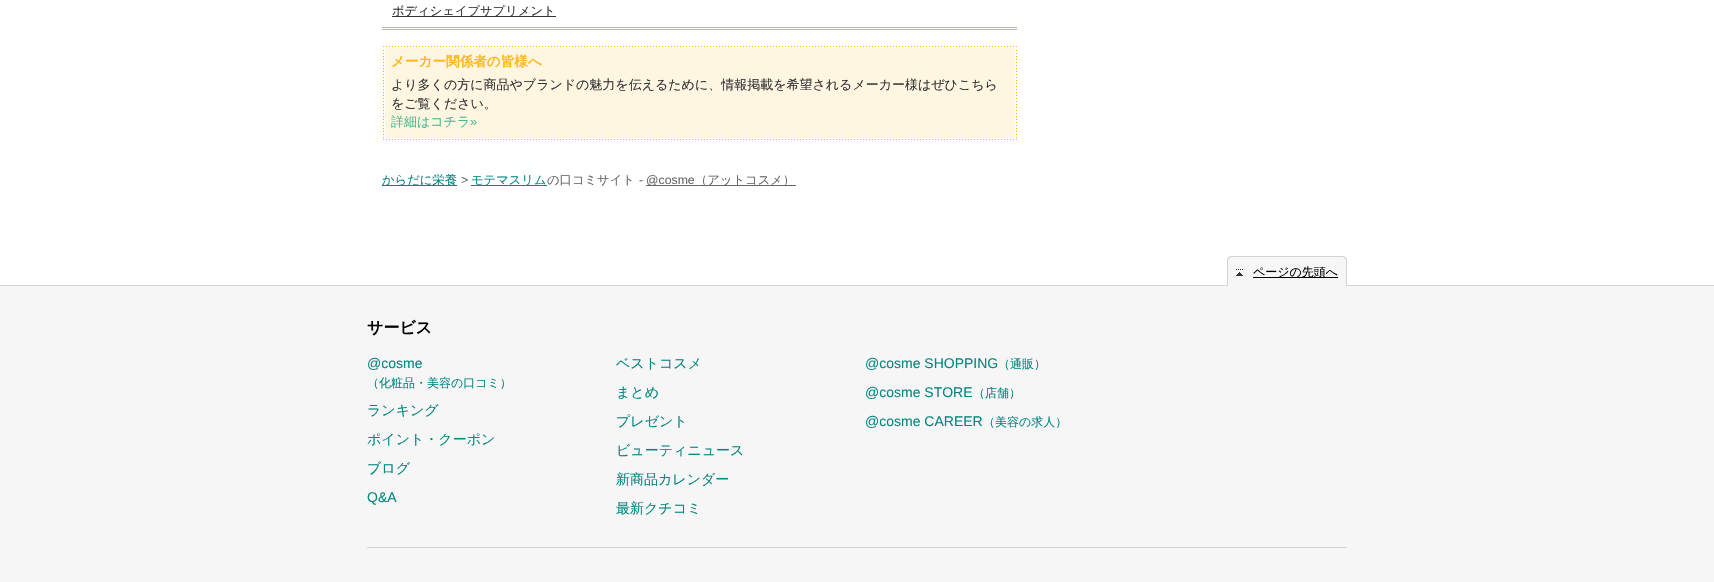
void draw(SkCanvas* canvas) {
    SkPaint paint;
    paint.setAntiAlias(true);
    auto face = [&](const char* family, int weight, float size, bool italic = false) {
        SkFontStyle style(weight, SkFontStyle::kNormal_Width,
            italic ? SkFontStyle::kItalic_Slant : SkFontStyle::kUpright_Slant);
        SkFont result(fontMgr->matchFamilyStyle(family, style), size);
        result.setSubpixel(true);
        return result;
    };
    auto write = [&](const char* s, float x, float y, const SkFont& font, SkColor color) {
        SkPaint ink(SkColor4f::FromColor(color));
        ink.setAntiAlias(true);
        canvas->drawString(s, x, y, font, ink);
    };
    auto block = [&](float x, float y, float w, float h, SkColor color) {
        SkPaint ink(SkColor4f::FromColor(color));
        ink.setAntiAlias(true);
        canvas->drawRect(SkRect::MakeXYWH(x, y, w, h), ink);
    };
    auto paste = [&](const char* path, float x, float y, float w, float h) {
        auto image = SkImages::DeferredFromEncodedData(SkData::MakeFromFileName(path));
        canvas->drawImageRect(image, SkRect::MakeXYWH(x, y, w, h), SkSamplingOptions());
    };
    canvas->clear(SK_ColorWHITE);
    block(382, 27, 635, 1, SkColorSetRGB(189, 184, 173));
    block(382, 29, 635, 1, SkColorSetRGB(189, 184, 173));
    block(392, 16, 164, 1, SkColorSetRGB(51, 51, 51));
    auto kFont1 = face("WenQuanYi Zen Hei", 500, 12.3f);
    write("ボディシェイプサプリメント", 392, 15, kFont1, SkColorSetRGB(51, 51, 51));
    paste("pic1.png", 383, 46, 634, 1);
    paste("pic1.png", 383, 139, 634, 1);
    paste("pic2.png", 383, 48, 634, 90);
    auto kFont2 = face("WenQuanYi Zen Hei", 700, 13.6f);
    write("メーカー関係者の皆様へ", 391, 66, kFont2, SkColorSetRGB(255, 182, 27));
    auto kFont3 = face("WenQuanYi Zen Hei", 500, 13);
    write("より多くの方に商品やブランドの魅力を伝えるために、情報掲載を希望されるメーカー様はぜひこちら", 391, 89, kFont3, SkColorSetRGB(51, 51, 51));
    write("をご覧ください。", 391, 108, kFont3, SkColorSetRGB(51, 51, 51));
    write("詳細はコチラ", 391, 126, kFont3, SkColorSetRGB(78, 182, 145));
    auto kFont4 = face("Liberation Sans", 400, 13);
    write("»", 470, 126, kFont4, SkColorSetRGB(78, 182, 145));
    block(382, 185, 75, 1, SkColorSetRGB(6, 134, 129));
    write("からだに栄養", 382, 184, kFont1, SkColorSetRGB(6, 134, 129));
    auto kFont5 = face("Liberation Sans", 400, 12.3f);
    write(">", 461, 184, kFont5, SkColorSetRGB(102, 102, 102));
    block(471, 185, 76, 1, SkColorSetRGB(6, 134, 129));
    write("モテマスリム", 471, 184, kFont1, SkColorSetRGB(6, 134, 129));
    write("の口コミサイト", 547, 184, kFont1, SkColorSetRGB(102, 102, 102));
    write("-", 639, 184, kFont5, SkColorSetRGB(102, 102, 102));
    block(646, 185, 150, 1, SkColorSetRGB(102, 102, 102));
    write("@cosme", 646, 184, kFont5, SkColorSetRGB(102, 102, 102));
    write("（アットコスメ）", 695, 184, kFont1, SkColorSetRGB(102, 102, 102));
    block(0, 286, 1714, 296, SkColorSetRGB(246, 246, 246));
    block(0, 285, 1714, 1, SkColorSetRGB(211, 211, 211));
    paint.setColor(SkColorSetRGB(246, 246, 246));
    canvas->drawPath(SkPathBuilder().moveTo(1232, 256).lineTo(1342, 256).cubicTo(1345, 256, 1347, 258, 1347, 261).lineTo(1347, 286).lineTo(1227, 286).lineTo(1227, 261).cubicTo(1227, 258, 1229, 256, 1232, 256).close().detach(), paint);
    paint.setColor(SkColorSetRGB(211, 211, 211));
    canvas->drawPath(SkPathBuilder(SkPathFillType::kEvenOdd).moveTo(1232, 256).lineTo(1342, 256).cubicTo(1345, 256, 1347, 258, 1347, 261).lineTo(1347, 286).lineTo(1227, 286).lineTo(1227, 261).cubicTo(1227, 258, 1229, 256, 1232, 256).close().moveTo(1232, 257).lineTo(1342, 257).cubicTo(1344, 257, 1346, 259, 1346, 261).lineTo(1346, 286).lineTo(1228, 286).lineTo(1228, 261).cubicTo(1228, 259, 1230, 257, 1232, 257).close().detach(), paint);
    paste("pic3.png", 1236, 269, 7, 7);
    block(1253, 277, 85, 1, SK_ColorBLACK);
    auto kFont6 = face("WenQuanYi Zen Hei", 500, 12);
    write("ページの先頭へ", 1253, 276, kFont6, SK_ColorBLACK);
    auto kFont7 = face("WenQuanYi Zen Hei", 700, 16);
    write("サービス", 367, 333, kFont7, SK_ColorBLACK);
    auto kFont8 = face("Liberation Sans", 400, 14);
    write("@cosme", 367, 368, kFont8, SkColorSetRGB(6, 134, 129));
    write("（化粧品・美容の口コミ）", 367, 387, kFont6, SkColorSetRGB(6, 134, 129));
    auto kFont9 = face("WenQuanYi Zen Hei", 500, 14);
    write("ランキング", 367, 415, kFont9, SkColorSetRGB(6, 134, 129));
    write("ポイント・クーポン", 367, 444, kFont9, SkColorSetRGB(6, 134, 129));
    write("ブログ", 367, 473, kFont9, SkColorSetRGB(6, 134, 129));
    write("Q&A", 367, 502, kFont8, SkColorSetRGB(6, 134, 129));
    write("ベストコスメ", 616, 368, kFont9, SkColorSetRGB(6, 134, 129));
    write("まとめ", 616, 397, kFont9, SkColorSetRGB(6, 134, 129));
    write("プレゼント", 616, 426, kFont9, SkColorSetRGB(6, 134, 129));
    write("ビューティニュース", 616, 455, kFont9, SkColorSetRGB(6, 134, 129));
    write("新商品カレンダー", 616, 484, kFont9, SkColorSetRGB(6, 134, 129));
    write("最新クチコミ", 616, 513, kFont9, SkColorSetRGB(6, 134, 129));
    write("@cosme SHOPPING", 865, 368, kFont8, SkColorSetRGB(6, 134, 129));
    write("（通販）", 998, 368, kFont6, SkColorSetRGB(6, 134, 129));
    write("@cosme STORE", 865, 397, kFont8, SkColorSetRGB(6, 134, 129));
    write("（店舗）", 973, 397, kFont6, SkColorSetRGB(6, 134, 129));
    write("@cosme CAREER", 865, 426, kFont8, SkColorSetRGB(6, 134, 129));
    write("（美容の求人）", 983, 426, kFont6, SkColorSetRGB(6, 134, 129));
    block(367, 547, 980, 1, SkColorSetRGB(211, 211, 211));
}
